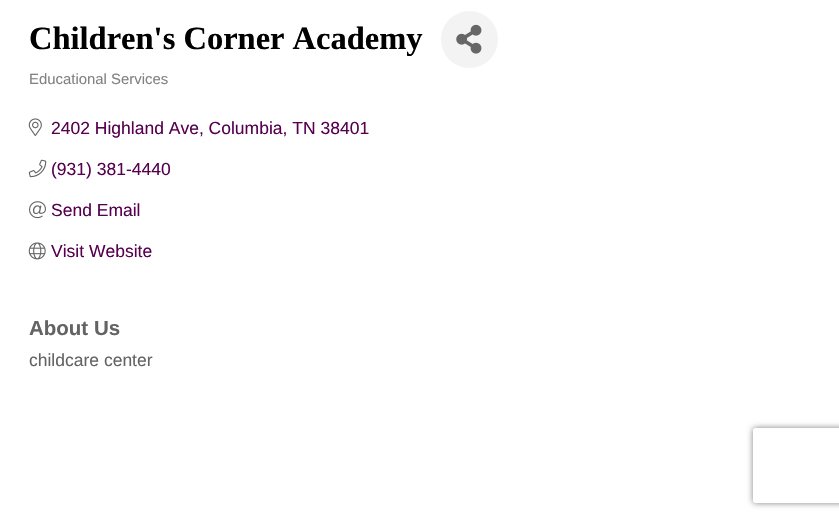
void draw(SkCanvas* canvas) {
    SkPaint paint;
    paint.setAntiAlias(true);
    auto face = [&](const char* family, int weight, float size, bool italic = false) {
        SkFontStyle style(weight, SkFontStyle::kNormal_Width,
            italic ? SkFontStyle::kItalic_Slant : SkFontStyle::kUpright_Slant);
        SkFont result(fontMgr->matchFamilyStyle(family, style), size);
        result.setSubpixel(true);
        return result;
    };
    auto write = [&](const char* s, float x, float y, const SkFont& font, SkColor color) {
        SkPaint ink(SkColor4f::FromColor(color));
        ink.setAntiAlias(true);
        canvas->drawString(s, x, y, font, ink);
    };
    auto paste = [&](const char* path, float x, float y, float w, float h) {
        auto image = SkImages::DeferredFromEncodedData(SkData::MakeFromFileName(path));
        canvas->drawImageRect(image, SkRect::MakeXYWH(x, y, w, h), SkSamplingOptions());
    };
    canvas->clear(SK_ColorWHITE);
    auto kFont1 = face("Liberation Serif", 700, 32.5f);
    write("Children's Corner Academy", 29, 49, kFont1, SK_ColorBLACK);
    paint.setColor(SkColorSetRGB(243, 243, 243));
    canvas->drawCircle(469.5f, 39.5f, 28.5f, paint);
    paste("pic1.png", 456, 24, 26, 30);
    auto kFont2 = face("Liberation Sans", 400, 14.9f);
    write("Educational Services", 29, 84, kFont2, SkColorSetRGB(130, 130, 130));
    paste("pic2.png", 28, 118, 14, 18);
    auto kFont3 = face("Liberation Sans", 400, 17.5f);
    write("2402 Highland Ave, Columbia, TN 38401", 51, 134, kFont3, SkColorSetRGB(86, 0, 79));
    paste("pic3.png", 28, 159, 19, 19);
    write("(931) 381-4440", 51, 175, kFont3, SkColorSetRGB(86, 0, 79));
    paste("pic4.png", 29, 201, 17, 18);
    write("Send Email", 51, 216, kFont3, SkColorSetRGB(86, 0, 79));
    paste("pic5.png", 28, 242, 18, 18);
    write("Visit Website", 51, 257, kFont3, SkColorSetRGB(86, 0, 79));
    auto kFont4 = face("Liberation Sans", 700, 20.5f);
    write("About Us", 29, 335, kFont4, SkColorSetRGB(99, 99, 99));
    write("childcare center", 29, 366, kFont3, SkColorSetRGB(99, 99, 99));
    canvas->save();
    canvas->clipPath(SkPathBuilder(SkPathFillType::kEvenOdd).moveTo(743, 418).lineTo(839, 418).lineTo(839, 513).lineTo(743, 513).close().moveTo(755.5f, 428).lineTo(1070.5f, 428).cubicTo(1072, 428, 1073, 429, 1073, 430.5f).lineTo(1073, 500.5f).cubicTo(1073, 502, 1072, 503, 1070.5f, 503).lineTo(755.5f, 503).cubicTo(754, 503, 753, 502, 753, 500.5f).lineTo(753, 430.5f).cubicTo(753, 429, 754, 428, 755.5f, 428).close().detach(), true);
    paint.setColor(SkColorSetRGB(128, 128, 128));
    paint.setMaskFilter(SkMaskFilter::MakeBlur(kNormal_SkBlurStyle, 3));
    canvas->drawRoundRect(SkRect::MakeXYWH(753, 428, 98, 75), 2.5f, 2.5f, paint);
    paint.setMaskFilter(nullptr);
    canvas->restore();
}
